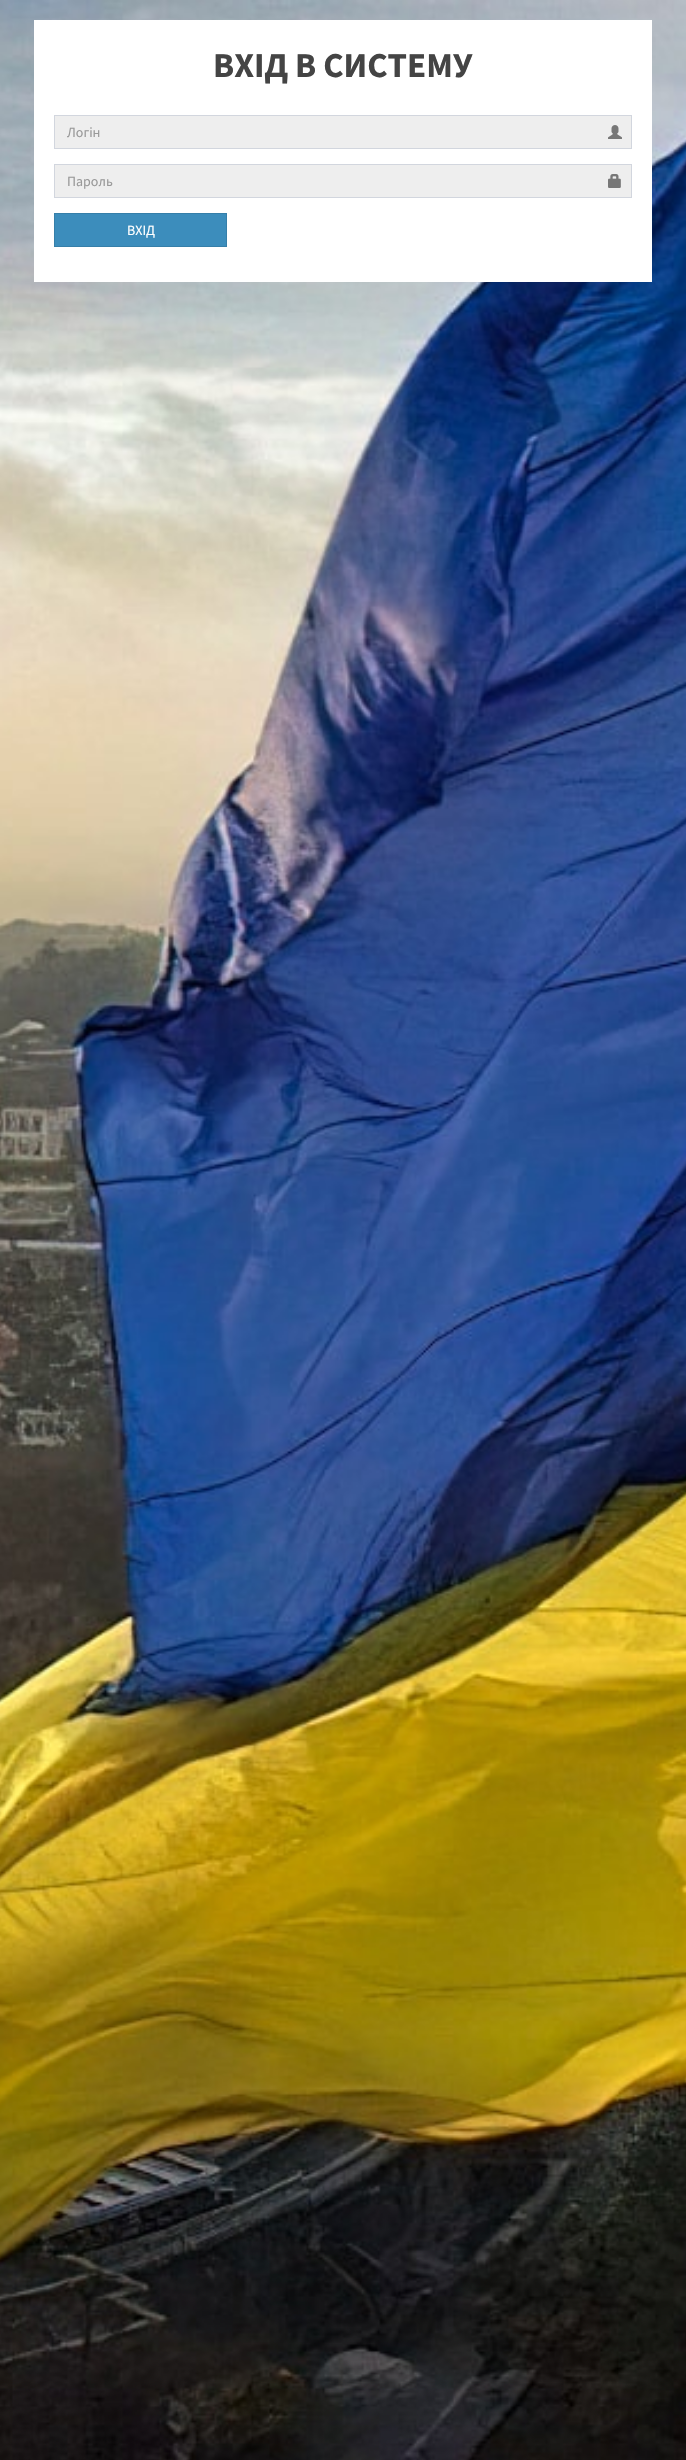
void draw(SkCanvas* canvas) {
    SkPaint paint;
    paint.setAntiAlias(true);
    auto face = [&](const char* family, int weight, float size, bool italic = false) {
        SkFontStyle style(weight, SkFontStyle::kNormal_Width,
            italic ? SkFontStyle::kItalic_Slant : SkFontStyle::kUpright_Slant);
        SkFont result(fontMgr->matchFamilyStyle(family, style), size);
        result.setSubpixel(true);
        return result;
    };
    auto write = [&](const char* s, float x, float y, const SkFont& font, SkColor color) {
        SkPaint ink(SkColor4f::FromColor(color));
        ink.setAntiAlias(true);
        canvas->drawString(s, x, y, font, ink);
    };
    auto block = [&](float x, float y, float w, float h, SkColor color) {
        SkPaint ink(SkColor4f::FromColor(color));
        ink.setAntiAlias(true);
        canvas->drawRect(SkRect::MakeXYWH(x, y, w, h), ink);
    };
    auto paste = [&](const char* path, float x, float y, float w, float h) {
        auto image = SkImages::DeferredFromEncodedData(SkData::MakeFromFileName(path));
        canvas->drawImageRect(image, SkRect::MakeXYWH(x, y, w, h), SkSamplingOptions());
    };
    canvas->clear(SK_ColorWHITE);
    paste("pic1.png", 0, 0, 686, 2460);
    block(34, 20, 618, 262, SK_ColorWHITE);
    auto kFont1 = face("Source Sans Pro", 700, 35);
    write("ВХІД В СИСТЕМУ", 213, 77, kFont1, SkColorSetRGB(68, 68, 68));
    paint.setColor(SkColorSetRGB(238, 238, 238));
    canvas->drawRect(SkRect::MakeXYWH(54.5f, 115.5f, 577, 33), paint);
    paint.setStyle(SkPaint::kStroke_Style);
    paint.setStrokeWidth(1);
    paint.setColor(SkColorSetRGB(210, 214, 222));
    canvas->drawRect(SkRect::MakeXYWH(54.5f, 115.5f, 577, 33), paint);
    auto kFont2 = face("Source Sans Pro", 400, 14);
    write("Логін", 67, 137, kFont2, SkColorSetRGB(153, 153, 153));
    paste("pic2.png", 608, 125, 14, 14);
    paint.setStyle(SkPaint::kFill_Style);
    paint.setColor(SkColorSetRGB(238, 238, 238));
    canvas->drawRect(SkRect::MakeXYWH(54.5f, 164.5f, 577, 33), paint);
    paint.setStyle(SkPaint::kStroke_Style);
    paint.setColor(SkColorSetRGB(210, 214, 222));
    canvas->drawRect(SkRect::MakeXYWH(54.5f, 164.5f, 577, 33), paint);
    write("Пароль", 67, 186, kFont2, SkColorSetRGB(153, 153, 153));
    paste("pic3.png", 608, 174, 13, 14);
    paint.setStyle(SkPaint::kFill_Style);
    paint.setColor(SkColorSetRGB(60, 141, 188));
    canvas->drawRect(SkRect::MakeXYWH(54.5f, 213.5f, 172, 33), paint);
    paint.setStyle(SkPaint::kStroke_Style);
    paint.setColor(SkColorSetRGB(54, 127, 169));
    canvas->drawRect(SkRect::MakeXYWH(54.5f, 213.5f, 172, 33), paint);
    write("ВХІД", 127, 235, kFont2, SK_ColorWHITE);
}
